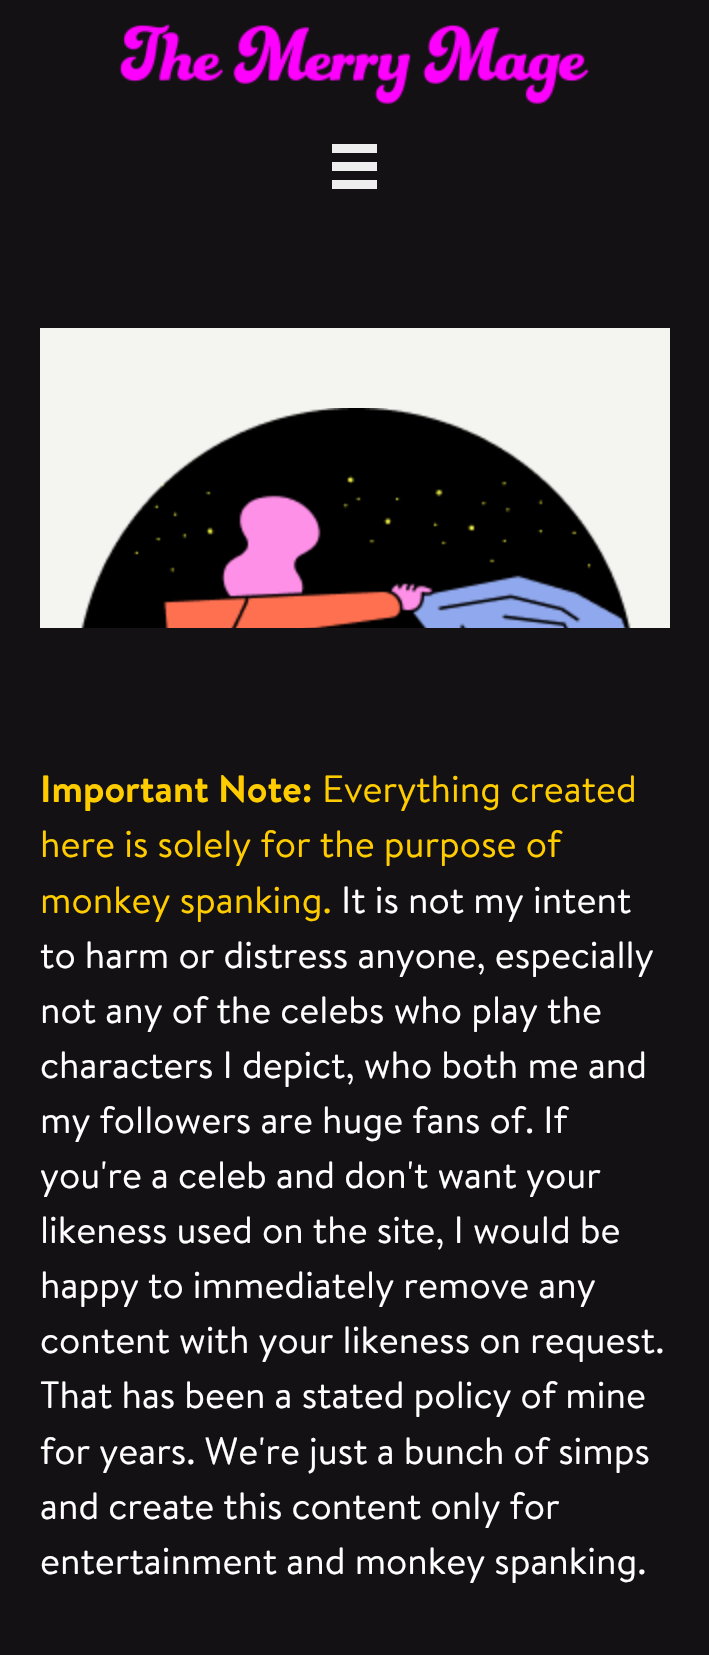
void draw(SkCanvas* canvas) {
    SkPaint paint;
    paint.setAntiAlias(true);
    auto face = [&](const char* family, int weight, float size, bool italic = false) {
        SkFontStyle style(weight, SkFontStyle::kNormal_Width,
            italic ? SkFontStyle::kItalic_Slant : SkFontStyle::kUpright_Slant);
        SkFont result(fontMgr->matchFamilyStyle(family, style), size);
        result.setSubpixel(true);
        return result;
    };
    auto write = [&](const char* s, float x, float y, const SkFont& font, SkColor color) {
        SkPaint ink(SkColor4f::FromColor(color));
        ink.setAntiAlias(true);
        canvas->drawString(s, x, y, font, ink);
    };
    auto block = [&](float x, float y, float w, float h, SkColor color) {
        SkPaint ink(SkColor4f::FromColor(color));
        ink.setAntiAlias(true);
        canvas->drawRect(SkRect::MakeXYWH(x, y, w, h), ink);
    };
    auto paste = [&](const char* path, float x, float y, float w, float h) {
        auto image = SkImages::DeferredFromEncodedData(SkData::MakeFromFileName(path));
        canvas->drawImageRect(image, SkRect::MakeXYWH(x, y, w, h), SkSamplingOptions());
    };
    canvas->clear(SkColorSetRGB(19, 17, 19));
    paste("pic1.png", 119, 23, 471, 82);
    block(332, 144, 45, 9, SkColorSetRGB(238, 238, 238));
    block(332, 162, 45, 9, SkColorSetRGB(238, 238, 238));
    block(332, 180, 45, 9, SkColorSetRGB(238, 238, 238));
    paste("pic2.png", 40, 328, 630, 300);
    auto kFont1 = face("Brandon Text", 700, 38);
    write("Important Note:", 40, 802, kFont1, SkColorSetRGB(255, 204, 0));
    auto kFont2 = face("Brandon Text", 400, 38);
    write("Everything created", 322, 802, kFont2, SkColorSetRGB(255, 204, 0));
    write("here is solely for the purpose of", 40, 857, kFont2, SkColorSetRGB(255, 204, 0));
    write("monkey spanking.", 40, 913, kFont2, SkColorSetRGB(255, 204, 0));
    write("It is not my intent", 341, 913, kFont2, SK_ColorWHITE);
    write("to harm or distress anyone, especially", 40, 968, kFont2, SK_ColorWHITE);
    write("not any of the celebs who play the", 40, 1023, kFont2, SK_ColorWHITE);
    write("characters I depict, who both me and", 40, 1078, kFont2, SK_ColorWHITE);
    write("my followers are huge fans of. If", 40, 1133, kFont2, SK_ColorWHITE);
    write("you're a celeb and don't want your", 40, 1188, kFont2, SK_ColorWHITE);
    write("likeness used on the site, I would be", 40, 1243, kFont2, SK_ColorWHITE);
    write("happy to immediately remove any", 40, 1298, kFont2, SK_ColorWHITE);
    write("content with your likeness on request.", 40, 1353, kFont2, SK_ColorWHITE);
    write("That has been a stated policy of mine", 40, 1408, kFont2, SK_ColorWHITE);
    write("for years. We're just a bunch of simps", 40, 1464, kFont2, SK_ColorWHITE);
    write("and create this content only for", 40, 1519, kFont2, SK_ColorWHITE);
    write("entertainment and monkey spanking.", 40, 1574, kFont2, SK_ColorWHITE);
}
